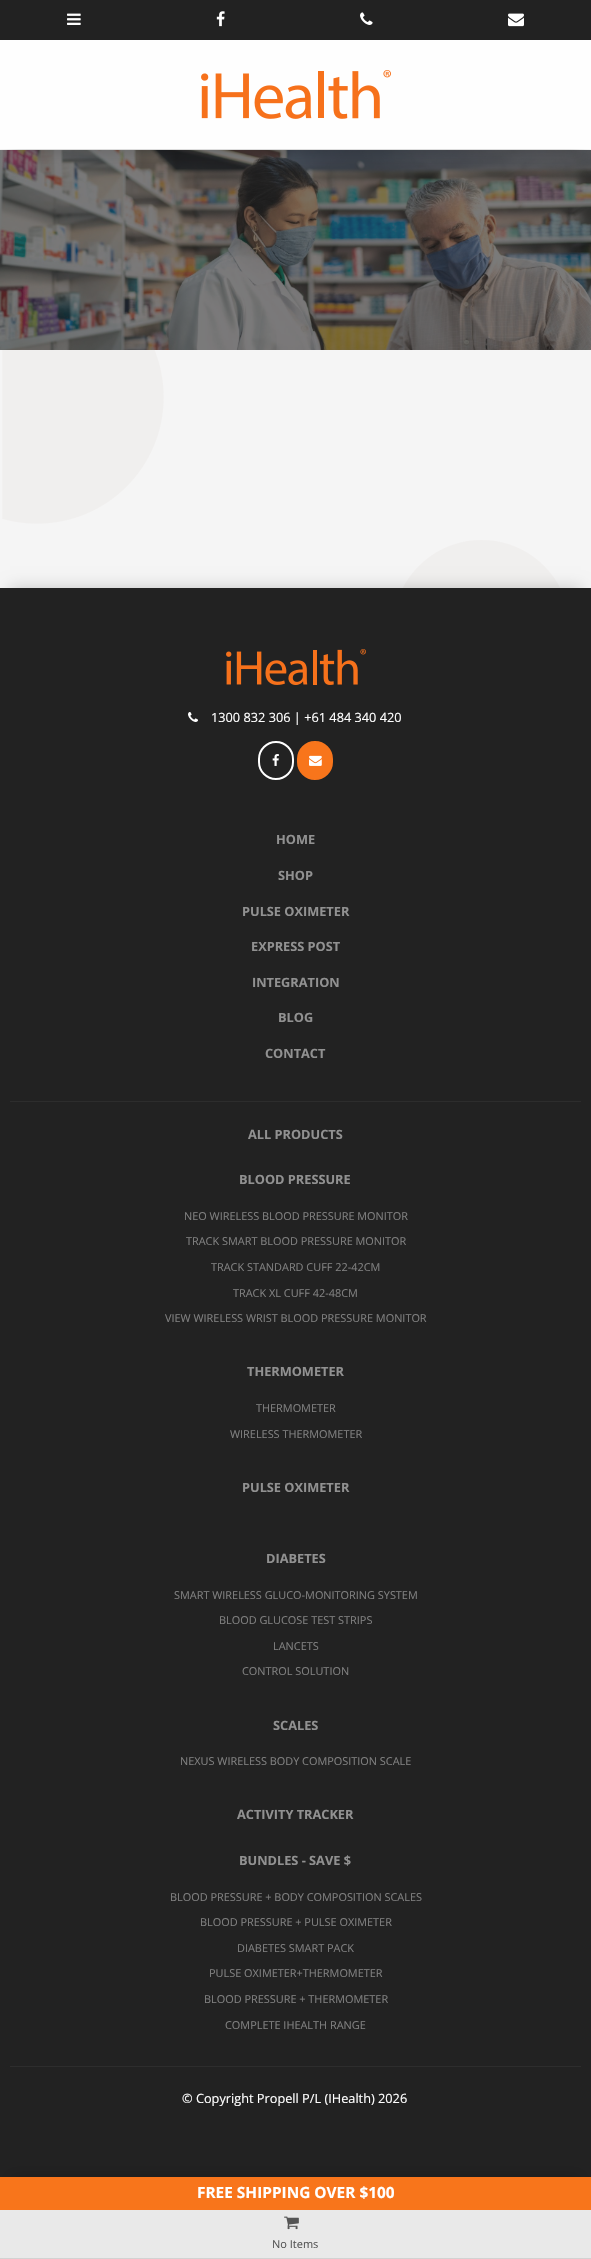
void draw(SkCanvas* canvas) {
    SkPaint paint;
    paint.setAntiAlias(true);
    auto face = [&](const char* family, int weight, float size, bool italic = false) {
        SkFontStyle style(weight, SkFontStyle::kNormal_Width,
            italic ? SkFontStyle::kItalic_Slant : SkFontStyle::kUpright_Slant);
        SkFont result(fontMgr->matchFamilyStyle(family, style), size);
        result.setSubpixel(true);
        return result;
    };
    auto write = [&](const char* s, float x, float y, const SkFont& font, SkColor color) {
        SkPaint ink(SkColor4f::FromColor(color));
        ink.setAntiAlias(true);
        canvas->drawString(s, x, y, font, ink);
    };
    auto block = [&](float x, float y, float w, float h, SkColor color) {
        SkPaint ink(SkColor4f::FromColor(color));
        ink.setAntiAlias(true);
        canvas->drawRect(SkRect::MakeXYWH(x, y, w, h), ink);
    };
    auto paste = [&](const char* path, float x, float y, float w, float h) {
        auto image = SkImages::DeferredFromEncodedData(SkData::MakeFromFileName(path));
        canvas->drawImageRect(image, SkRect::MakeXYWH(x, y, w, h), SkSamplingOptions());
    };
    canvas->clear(SkColorSetRGB(245, 245, 245));
    paste("pic1.png", 2, 350, 558, 238);
    paint.setColor(SkColorSetARGB(51, 0, 0, 0));
    paint.setMaskFilter(SkMaskFilter::MakeBlur(kNormal_SkBlurStyle, 7.5f));
    canvas->drawRect(SkRect::MakeXYWH(10, 588, 571, 1651), paint);
    paint.setMaskFilter(nullptr);
    block(0, 588, 591, 1589, SkColorSetRGB(34, 34, 34));
    paste("pic2.png", 226, 649, 140, 36);
    paste("pic3.png", 188, 712, 10, 10);
    auto kFont1 = face("Open Sans", 400, 12.75f);
    write("1300 832 306 | +61 484 340 420", 211, 722, kFont1, SK_ColorWHITE);
    paint.setStyle(SkPaint::kStroke_Style);
    paint.setStrokeWidth(2);
    paint.setColor(SK_ColorWHITE);
    canvas->drawRoundRect(SkRect::MakeXYWH(259, 742, 34, 37), 17, 17, paint);
    paste("pic4.png", 272, 754, 7, 12);
    paint.setStyle(SkPaint::kFill_Style);
    paint.setColor(SkColorSetRGB(248, 117, 27));
    canvas->drawRoundRect(SkRect::MakeXYWH(298, 742, 34, 37), 17, 17, paint);
    paint.setStyle(SkPaint::kStroke_Style);
    canvas->drawRoundRect(SkRect::MakeXYWH(298, 742, 34, 37), 17, 17, paint);
    paste("pic5.png", 309, 755, 13, 11);
    auto kFont2 = face("Open Sans", 700, 12.75f);
    write("HOME", 276, 844, kFont2, SkColorSetRGB(145, 145, 145));
    write("SHOP", 278, 880, kFont2, SkColorSetRGB(145, 145, 145));
    write("PULSE OXIMETER", 242, 916, kFont2, SkColorSetRGB(145, 145, 145));
    write("EXPRESS POST", 251, 951, kFont2, SkColorSetRGB(145, 145, 145));
    write("INTEGRATION", 252, 987, kFont2, SkColorSetRGB(145, 145, 145));
    write("BLOG", 278, 1022, kFont2, SkColorSetRGB(145, 145, 145));
    write("CONTACT", 265, 1058, kFont2, SkColorSetRGB(145, 145, 145));
    block(10, 1101, 571, 1, SkColorSetRGB(45, 45, 45));
    block(10, 2066, 571, 1, SkColorSetRGB(45, 45, 45));
    write("ALL PRODUCTS", 248, 1139, kFont2, SkColorSetRGB(145, 145, 145));
    write("BLOOD PRESSURE", 239, 1184, kFont2, SkColorSetRGB(145, 145, 145));
    auto kFont3 = face("Open Sans", 400, 10.9f);
    write("NEO WIRELESS BLOOD PRESSURE MONITOR", 184, 1220, kFont3, SkColorSetRGB(128, 128, 128));
    write("TRACK SMART BLOOD PRESSURE MONITOR", 186, 1245, kFont3, SkColorSetRGB(128, 128, 128));
    write("TRACK STANDARD CUFF 22-42CM", 211, 1271, kFont3, SkColorSetRGB(128, 128, 128));
    write("TRACK XL CUFF 42-48CM", 233, 1297, kFont3, SkColorSetRGB(128, 128, 128));
    write("VIEW WIRELESS WRIST BLOOD PRESSURE MONITOR", 165, 1322, kFont3, SkColorSetRGB(128, 128, 128));
    write("THERMOMETER", 247, 1376, kFont2, SkColorSetRGB(145, 145, 145));
    write("THERMOMETER", 256, 1412, kFont3, SkColorSetRGB(128, 128, 128));
    write("WIRELESS THERMOMETER", 230, 1438, kFont3, SkColorSetRGB(128, 128, 128));
    write("PULSE OXIMETER", 242, 1492, kFont2, SkColorSetRGB(145, 145, 145));
    write("DIABETES", 266, 1563, kFont2, SkColorSetRGB(145, 145, 145));
    write("SMART WIRELESS GLUCO-MONITORING SYSTEM", 174, 1599, kFont3, SkColorSetRGB(128, 128, 128));
    write("BLOOD GLUCOSE TEST STRIPS", 219, 1624, kFont3, SkColorSetRGB(128, 128, 128));
    write("LANCETS", 273, 1650, kFont3, SkColorSetRGB(128, 128, 128));
    write("CONTROL SOLUTION", 242, 1675, kFont3, SkColorSetRGB(128, 128, 128));
    write("SCALES", 273, 1730, kFont2, SkColorSetRGB(145, 145, 145));
    write("NEXUS WIRELESS BODY COMPOSITION SCALE", 180, 1765, kFont3, SkColorSetRGB(128, 128, 128));
    write("ACTIVITY TRACKER", 237, 1819, kFont2, SkColorSetRGB(145, 145, 145));
    write("BUNDLES - SAVE $", 239, 1865, kFont2, SkColorSetRGB(145, 145, 145));
    write("BLOOD PRESSURE + BODY COMPOSITION SCALES", 170, 1901, kFont3, SkColorSetRGB(128, 128, 128));
    write("BLOOD PRESSURE + PULSE OXIMETER", 200, 1926, kFont3, SkColorSetRGB(128, 128, 128));
    write("DIABETES SMART PACK", 237, 1952, kFont3, SkColorSetRGB(128, 128, 128));
    write("PULSE OXIMETER+THERMOMETER", 209, 1977, kFont3, SkColorSetRGB(128, 128, 128));
    write("BLOOD PRESSURE + THERMOMETER", 204, 2003, kFont3, SkColorSetRGB(128, 128, 128));
    write("COMPLETE IHEALTH RANGE", 225, 2029, kFont3, SkColorSetRGB(128, 128, 128));
    write("© Copyright Propell P/L (IHealth) 2026", 182, 2103, kFont1, SK_ColorWHITE);
    paste("pic10.png", 0, 150, 591, 200);
    paint.setStyle(SkPaint::kFill_Style);
    paint.setColor(SkColorSetARGB(51, 0, 0, 0));
    paint.setMaskFilter(SkMaskFilter::MakeBlur(kNormal_SkBlurStyle, 7.5f));
    canvas->drawRect(SkRect::MakeXYWH(10, 60, 571, 89), paint);
    paint.setMaskFilter(nullptr);
    block(0, 0, 591, 40, SkColorSetRGB(34, 34, 34));
    paste("pic6.png", 67, 13, 14, 12);
    paste("pic7.png", 216, 11, 9, 16);
    paste("pic8.png", 360, 12, 13, 13);
    paste("pic9.png", 508, 13, 16, 14);
    block(0, 40, 591, 109, SkColorSetRGB(254, 254, 254));
    paste("pic11.png", 201, 70, 190, 49);
    block(0, 2210, 591, 48, SkColorSetRGB(233, 233, 233));
    block(0, 2258, 591, 1, SkColorSetRGB(210, 210, 210));
    paint.setMaskFilter(SkMaskFilter::MakeBlur(kNormal_SkBlurStyle, 7.5f));
    canvas->drawRect(SkRect::MakeXYWH(10, 2177, 571, 13), paint);
    paint.setMaskFilter(nullptr);
    block(0, 2177, 591, 33, SkColorSetRGB(248, 117, 27));
    auto kFont4 = face("Open Sans", 700, 15.4f);
    write("FREE SHIPPING OVER $100", 197, 2198, kFont4, SK_ColorWHITE);
    paste("pic12.png", 284, 2216, 15, 14);
    auto kFont5 = face("Open Sans", 400, 11);
    write("No Items", 272, 2248, kFont5, SkColorSetRGB(85, 85, 85));
}
